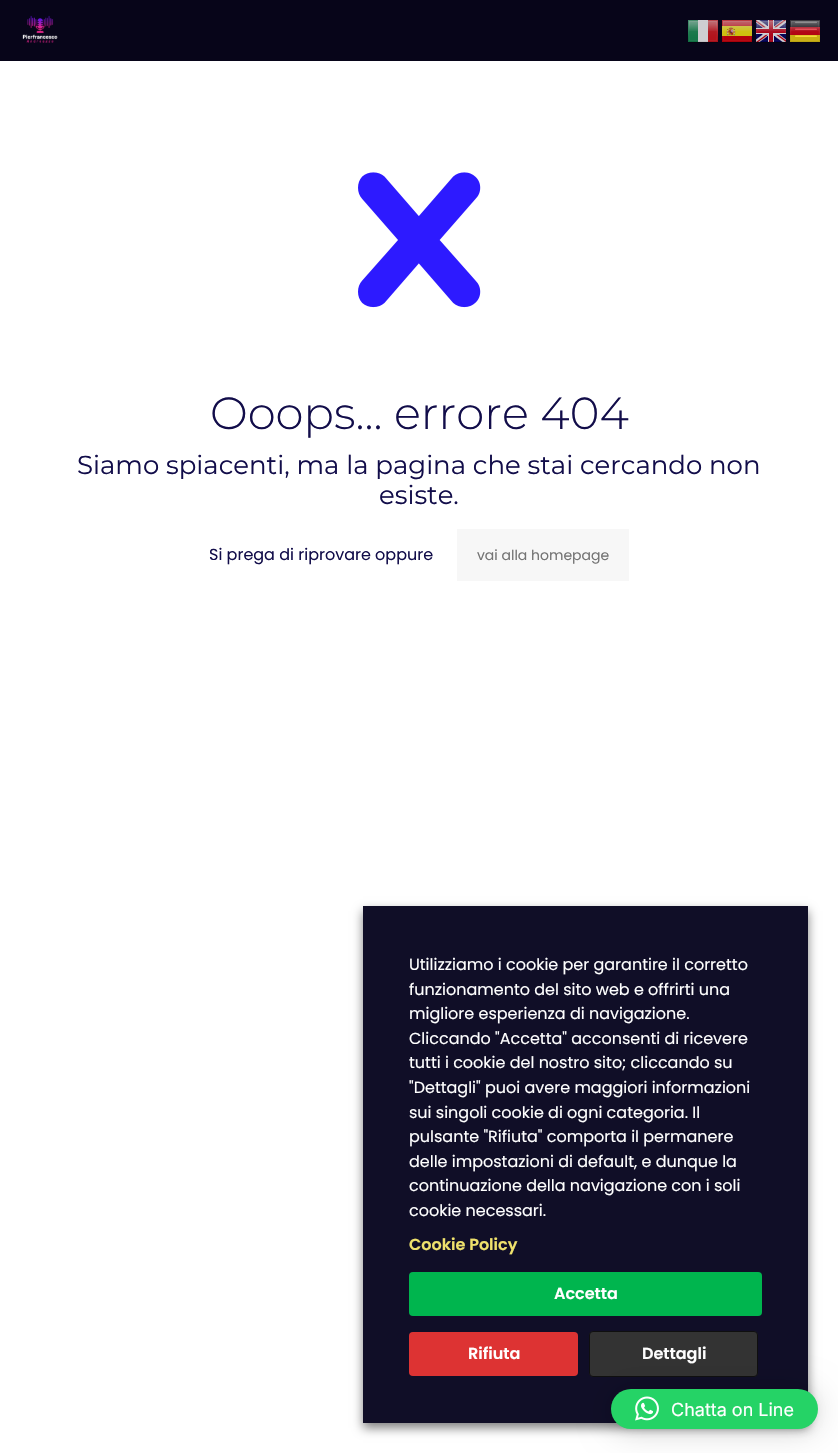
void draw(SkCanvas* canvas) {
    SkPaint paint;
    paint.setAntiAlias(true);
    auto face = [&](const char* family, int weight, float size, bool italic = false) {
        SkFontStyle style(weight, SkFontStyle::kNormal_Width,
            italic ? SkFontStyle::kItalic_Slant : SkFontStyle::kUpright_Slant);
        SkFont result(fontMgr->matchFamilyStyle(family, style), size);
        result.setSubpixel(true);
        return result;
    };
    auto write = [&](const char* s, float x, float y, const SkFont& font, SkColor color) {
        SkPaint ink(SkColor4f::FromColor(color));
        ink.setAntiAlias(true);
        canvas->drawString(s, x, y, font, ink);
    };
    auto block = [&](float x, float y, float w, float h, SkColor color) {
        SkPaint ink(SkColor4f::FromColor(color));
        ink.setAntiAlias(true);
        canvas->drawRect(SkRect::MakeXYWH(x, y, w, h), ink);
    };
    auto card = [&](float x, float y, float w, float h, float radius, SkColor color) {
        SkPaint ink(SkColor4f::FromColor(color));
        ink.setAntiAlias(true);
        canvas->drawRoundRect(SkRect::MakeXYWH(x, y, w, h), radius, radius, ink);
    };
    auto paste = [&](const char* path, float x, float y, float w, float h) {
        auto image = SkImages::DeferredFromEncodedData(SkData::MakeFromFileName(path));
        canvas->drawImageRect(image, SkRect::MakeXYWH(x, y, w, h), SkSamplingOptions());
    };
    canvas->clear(SK_ColorWHITE);
    block(0, 0, 838, 61, SkColorSetRGB(7, 5, 25));
    paste("pic1.png", 22, 15, 36, 28);
    paste("pic2.png", 795, 21, 22, 16);
    paste("pic3.png", 688, 20, 30, 23);
    paste("pic4.png", 722, 20, 30, 23);
    paste("pic5.png", 756, 20, 30, 23);
    paste("pic6.png", 790, 20, 30, 23);
    paste("pic7.png", 358, 172, 123, 136);
    auto kFont1 = face("Montserrat", 300, 45);
    write("Ooops... errore 404", 210, 429, kFont1, SkColorSetRGB(18, 13, 74));
    auto kFont2 = face("Montserrat", 400, 26);
    write("Siamo spiacenti, ma la pagina che stai cercando non", 77, 474, kFont2, SkColorSetRGB(18, 13, 74));
    write("esiste.", 379, 504, kFont2, SkColorSetRGB(18, 13, 74));
    auto kFont3 = face("Poppins", 400, 16);
    write("Si prega di riprovare oppure", 209, 560, kFont3, SkColorSetRGB(18, 13, 74));
    block(457, 529, 172, 52, SkColorSetRGB(247, 247, 247));
    auto kFont4 = face("Poppins", 400, 14);
    write("vai alla homepage", 477, 560, kFont4, SkColorSetRGB(116, 116, 116));
    paint.setColor(SkColorSetARGB(128, 0, 0, 0));
    paint.setMaskFilter(SkMaskFilter::MakeBlur(kNormal_SkBlurStyle, 5));
    canvas->drawRect(SkRect::MakeXYWH(363, 911, 445, 517), paint);
    paint.setMaskFilter(nullptr);
    block(363, 906, 445, 517, SkColorSetRGB(16, 14, 39));
    write("Utilizziamo i cookie per garantire il corretto", 409, 970, kFont3, SK_ColorWHITE);
    write("funzionamento del sito web e offrirti una", 409, 995, kFont3, SK_ColorWHITE);
    write("migliore esperienza di navigazione.", 409, 1019, kFont3, SK_ColorWHITE);
    write("Cliccando \"Accetta\" acconsenti di ricevere", 409, 1044, kFont3, SK_ColorWHITE);
    write("tutti i cookie del nostro sito; cliccando su", 409, 1068, kFont3, SK_ColorWHITE);
    write("\"Dettagli\" puoi avere maggiori informazioni", 409, 1093, kFont3, SK_ColorWHITE);
    write("sui singoli cookie di ogni categoria. Il", 409, 1118, kFont3, SK_ColorWHITE);
    write("pulsante \"Rifiuta\" comporta il permanere", 409, 1142, kFont3, SK_ColorWHITE);
    write("delle impostazioni di default, e dunque la", 409, 1167, kFont3, SK_ColorWHITE);
    write("continuazione della navigazione con i soli", 409, 1191, kFont3, SK_ColorWHITE);
    write("cookie necessari.", 409, 1216, kFont3, SK_ColorWHITE);
    auto kFont5 = face("Poppins", 600, 16);
    write("Cookie Policy", 409, 1250, kFont5, SkColorSetRGB(239, 225, 108));
    card(409, 1272, 353, 44, 4, SkColorSetRGB(0, 181, 78));
    write("Accetta", 554, 1299, kFont5, SK_ColorWHITE);
    card(409, 1332, 169, 44, 4, SkColorSetRGB(221, 51, 51));
    write("Rifiuta", 468, 1359, kFont5, SK_ColorWHITE);
    paint.setColor(SkColorSetRGB(51, 51, 51));
    canvas->drawRoundRect(SkRect::MakeXYWH(589.5f, 1331.5f, 168, 45), 3.5f, 3.5f, paint);
    paint.setStyle(SkPaint::kStroke_Style);
    paint.setStrokeWidth(1);
    paint.setColor(SkColorSetRGB(15, 15, 15));
    canvas->drawRoundRect(SkRect::MakeXYWH(589.5f, 1331.5f, 168, 45), 3.5f, 3.5f, paint);
    write("Dettagli", 642, 1359, kFont5, SK_ColorWHITE);
    paint.setStyle(SkPaint::kFill_Style);
    paint.setColor(SkColorSetARGB(41, 0, 0, 0));
    paint.setMaskFilter(SkMaskFilter::MakeBlur(kNormal_SkBlurStyle, 16));
    canvas->drawRoundRect(SkRect::MakeXYWH(611, 1391, 207, 40), 20, 20, paint);
    paint.setMaskFilter(nullptr);
    paint.setColor(SkColorSetARGB(15, 0, 0, 0));
    paint.setMaskFilter(SkMaskFilter::MakeBlur(kNormal_SkBlurStyle, 3));
    canvas->drawRoundRect(SkRect::MakeXYWH(611, 1390, 207, 40), 20, 20, paint);
    paint.setMaskFilter(nullptr);
    card(611, 1389, 207, 40, 20, SkColorSetRGB(37, 211, 102));
    paste("pic8.png", 635, 1396, 24, 25);
    auto kFont6 = face("Inter", 400, 18);
    write("Chatta on Line", 671, 1416, kFont6, SK_ColorWHITE);
}
